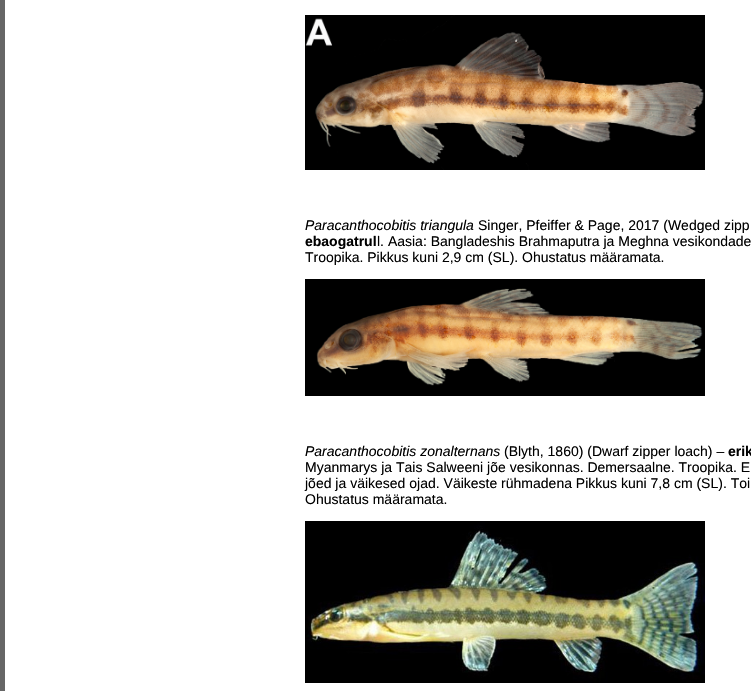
void draw(SkCanvas* canvas) {
    SkPaint paint;
    paint.setAntiAlias(true);
    auto face = [&](const char* family, int weight, float size, bool italic = false) {
        SkFontStyle style(weight, SkFontStyle::kNormal_Width,
            italic ? SkFontStyle::kItalic_Slant : SkFontStyle::kUpright_Slant);
        SkFont result(fontMgr->matchFamilyStyle(family, style), size);
        result.setSubpixel(true);
        return result;
    };
    auto write = [&](const char* s, float x, float y, const SkFont& font, SkColor color) {
        SkPaint ink(SkColor4f::FromColor(color));
        ink.setAntiAlias(true);
        canvas->drawString(s, x, y, font, ink);
    };
    auto block = [&](float x, float y, float w, float h, SkColor color) {
        SkPaint ink(SkColor4f::FromColor(color));
        ink.setAntiAlias(true);
        canvas->drawRect(SkRect::MakeXYWH(x, y, w, h), ink);
    };
    auto paste = [&](const char* path, float x, float y, float w, float h) {
        auto image = SkImages::DeferredFromEncodedData(SkData::MakeFromFileName(path));
        canvas->drawImageRect(image, SkRect::MakeXYWH(x, y, w, h), SkSamplingOptions());
    };
    canvas->clear(SkColorSetRGB(102, 102, 102));
    block(5, 0, 746, 691, SK_ColorWHITE);
    paste("pic1.png", 305, 15, 400, 155);
    auto kFont1 = face("Liberation Sans", 400, 14, true);
    write("Paracanthocobitis triangula", 305, 230, kFont1, SK_ColorBLACK);
    auto kFont2 = face("Liberation Sans", 400, 14);
    write("Singer, Pfeiffer & Page, 2017 (Wedged zipp", 478, 230, kFont2, SK_ColorBLACK);
    auto kFont3 = face("Liberation Sans", 700, 14);
    write("ebaogatrul", 305, 246, kFont3, SK_ColorBLACK);
    write("l. Aasia: Bangladeshis Brahmaputra ja Meghna vesikondade", 377, 246, kFont2, SK_ColorBLACK);
    write("Troopika. Pikkus kuni 2,9 cm (SL). Ohustatus määramata.", 305, 262, kFont2, SK_ColorBLACK);
    paste("pic2.png", 305, 279, 400, 117);
    write("Paracanthocobitis zonalternans", 305, 456, kFont1, SK_ColorBLACK);
    write("(Blyth, 1860) (Dwarf zipper loach) –", 504, 456, kFont2, SK_ColorBLACK);
    write("erik", 728, 456, kFont3, SK_ColorBLACK);
    write("Myanmarys ja Tais Salweeni jõe vesikonnas. Demersaalne. Troopika. E", 305, 472, kFont2, SK_ColorBLACK);
    write("jõed ja väikesed ojad. Väikeste rühmadena Pikkus kuni 7,8 cm (SL). Toi", 305, 488, kFont2, SK_ColorBLACK);
    write("Ohustatus määramata.", 305, 504, kFont2, SK_ColorBLACK);
    paste("pic3.png", 305, 521, 400, 162);
}
